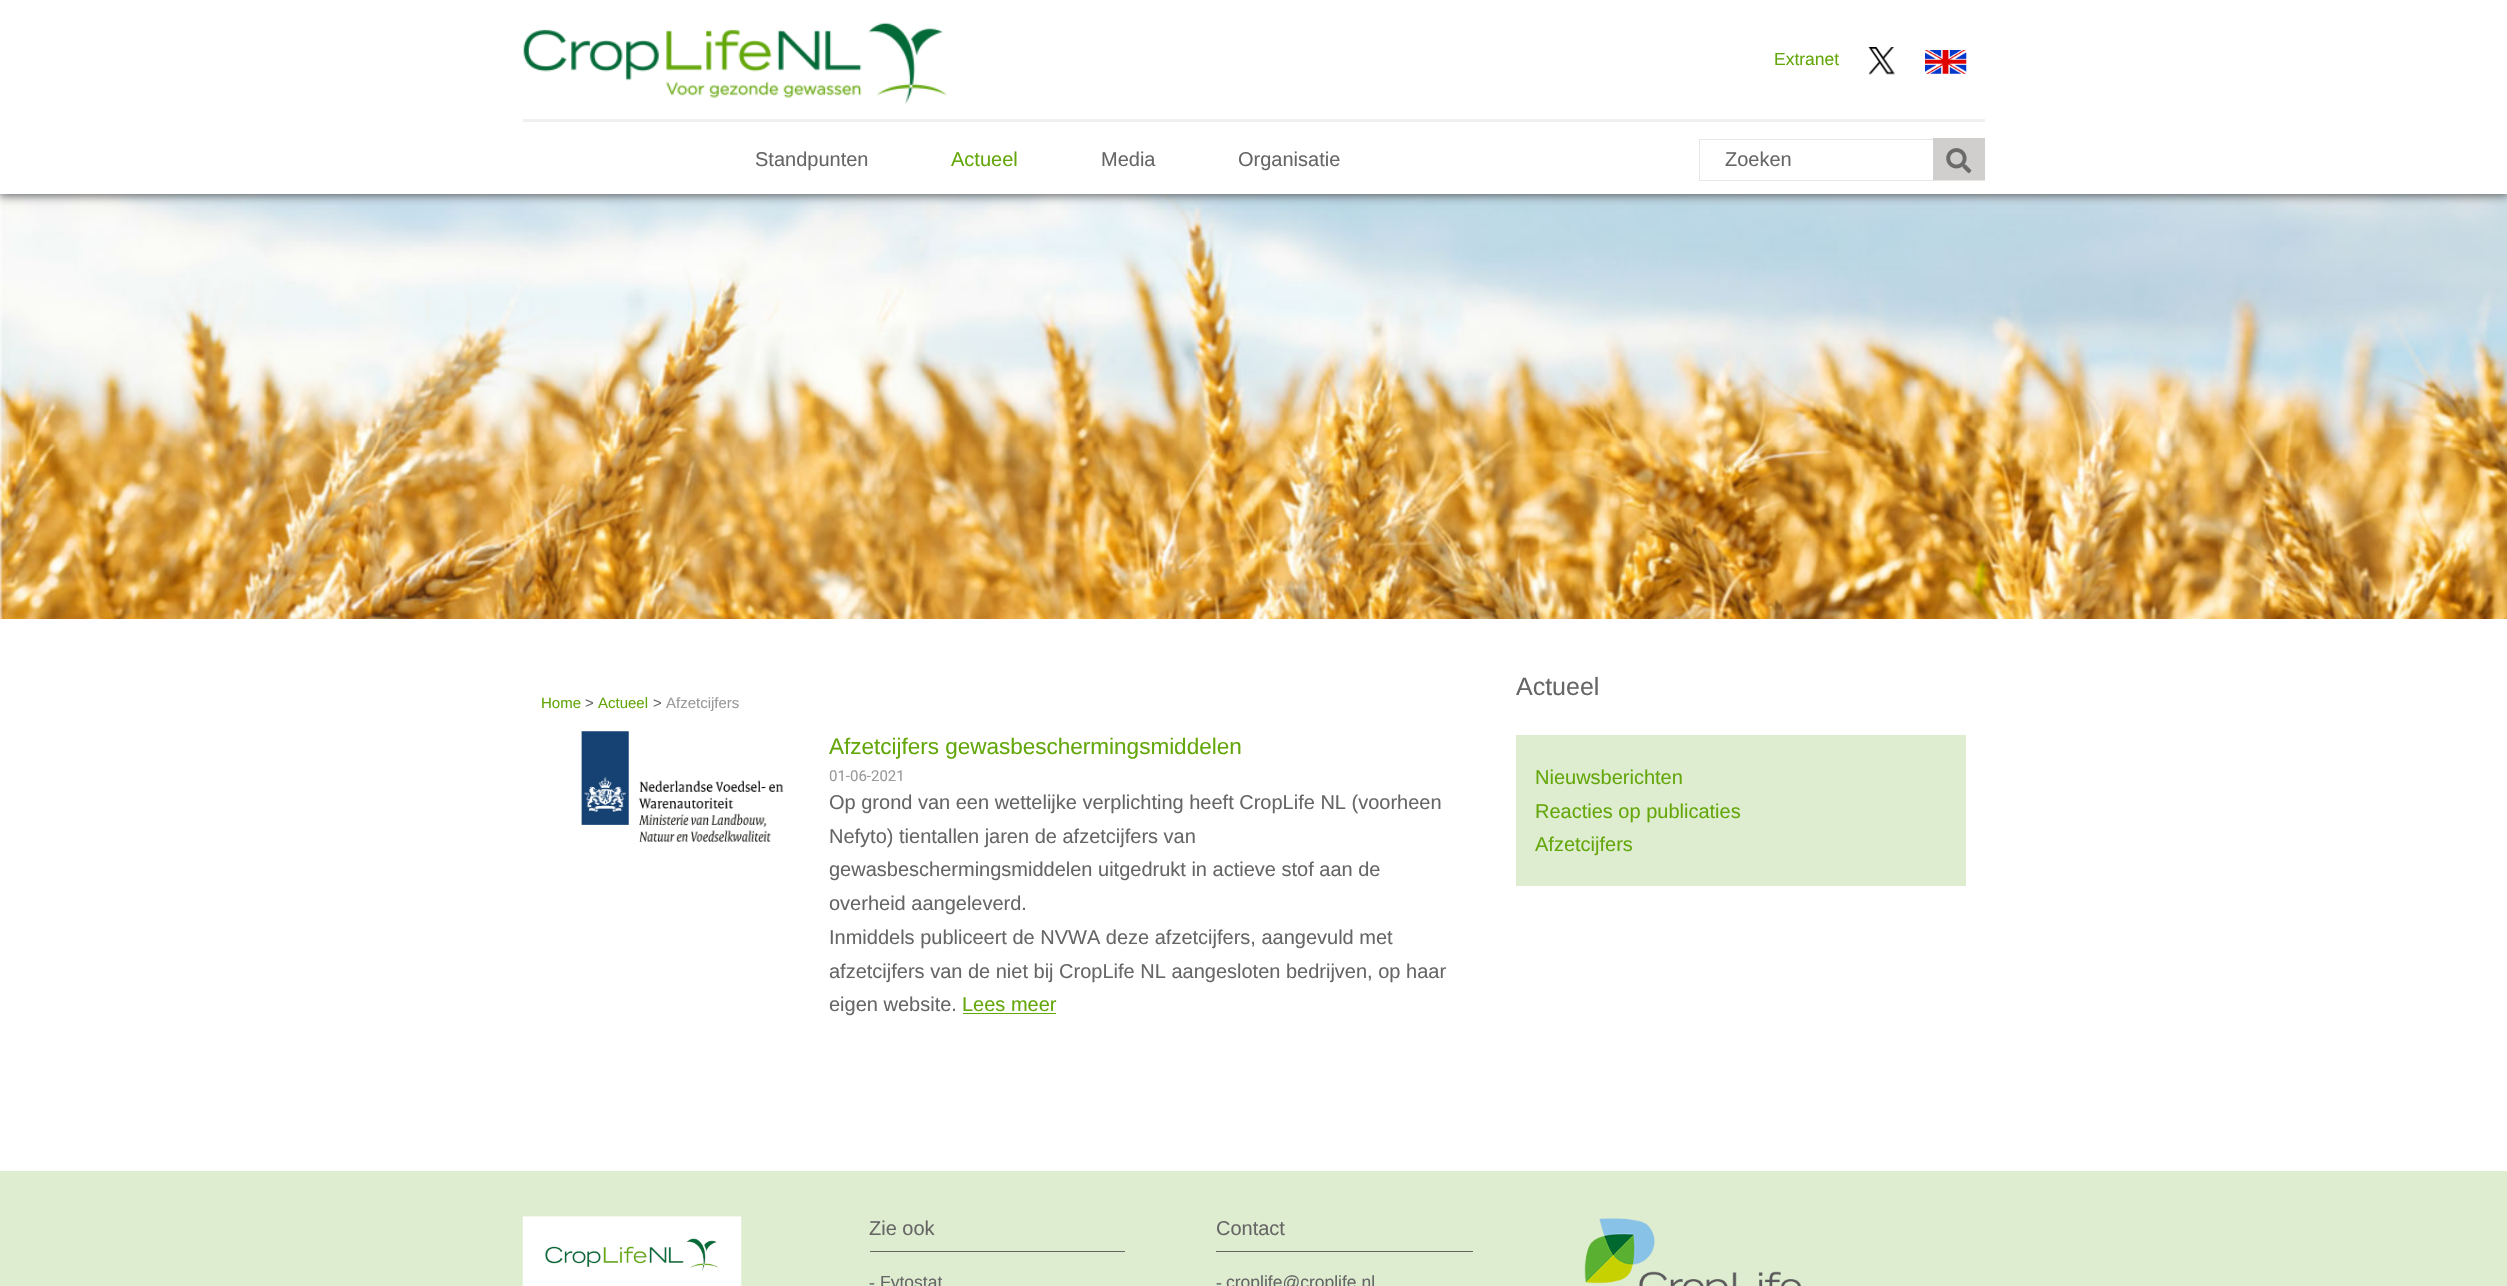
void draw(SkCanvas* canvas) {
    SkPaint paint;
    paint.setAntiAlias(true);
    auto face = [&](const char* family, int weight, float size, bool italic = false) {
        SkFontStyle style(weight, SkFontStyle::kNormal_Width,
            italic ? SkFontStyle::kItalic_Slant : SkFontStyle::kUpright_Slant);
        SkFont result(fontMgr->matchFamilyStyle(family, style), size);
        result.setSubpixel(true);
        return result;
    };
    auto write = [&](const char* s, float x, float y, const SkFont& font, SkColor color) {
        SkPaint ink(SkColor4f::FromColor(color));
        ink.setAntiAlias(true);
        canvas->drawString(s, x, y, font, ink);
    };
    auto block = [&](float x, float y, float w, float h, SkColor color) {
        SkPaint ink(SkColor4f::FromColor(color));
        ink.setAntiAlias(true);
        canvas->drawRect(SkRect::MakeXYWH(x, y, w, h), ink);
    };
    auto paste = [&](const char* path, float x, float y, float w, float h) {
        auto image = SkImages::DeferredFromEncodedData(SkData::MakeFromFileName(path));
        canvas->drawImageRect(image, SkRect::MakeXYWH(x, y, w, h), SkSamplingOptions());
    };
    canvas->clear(SK_ColorWHITE);
    paste("pic5.png", 0, 193, 2507, 1);
    paste("pic6.png", 0, 194, 2507, 425);
    canvas->save();
    canvas->clipPath(SkPathBuilder(SkPathFillType::kEvenOdd).moveTo(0, 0).lineTo(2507, 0).lineTo(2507, 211).lineTo(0, 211).close().moveTo(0, 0).lineTo(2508, 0).lineTo(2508, 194).lineTo(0, 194).close().detach(), true);
    paint.setColor(SkColorSetRGB(80, 80, 80));
    paint.setMaskFilter(SkMaskFilter::MakeBlur(kNormal_SkBlurStyle, 5));
    canvas->drawRect(SkRect::MakeXYWH(-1, -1, 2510, 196), paint);
    paint.setMaskFilter(nullptr);
    canvas->restore();
    paste("pic1.png", 523, 22, 424, 82);
    auto kFont1 = face("Liberation Sans", 400, 17.5f);
    write("Extranet", 1774, 65, kFont1, SkColorSetRGB(100, 167, 11));
    paste("pic2.png", 1868, 47, 27, 28);
    paste("pic3.png", 1925, 50, 42, 24);
    block(523, 119, 1462, 3, SkColorSetRGB(240, 240, 240));
    block(523, 193, 1462, 1, SK_ColorWHITE);
    auto kFont2 = face("Liberation Sans", 400, 20);
    write("Standpunten", 755, 166, kFont2, SkColorSetRGB(102, 102, 102));
    write("Actueel", 951, 166, kFont2, SkColorSetRGB(100, 167, 11));
    write("Media", 1101, 166, kFont2, SkColorSetRGB(102, 102, 102));
    write("Organisatie", 1238, 166, kFont2, SkColorSetRGB(102, 102, 102));
    paint.setStyle(SkPaint::kStroke_Style);
    paint.setStrokeWidth(1);
    paint.setColor(SkColorSetRGB(230, 230, 230));
    canvas->drawRect(SkRect::MakeXYWH(1699.5f, 139.5f, 285, 41), paint);
    write("Zoeken", 1725, 166, kFont2, SkColorSetRGB(102, 102, 102));
    block(1933, 138, 52, 42, SkColorSetRGB(208, 207, 206));
    paste("pic4.png", 1946, 148, 26, 26);
    auto kFont3 = face("Liberation Sans", 400, 15);
    write("Home", 541, 708, kFont3, SkColorSetRGB(100, 167, 11));
    write(">", 585, 708, kFont3, SkColorSetRGB(102, 102, 102));
    write("Actueel", 598, 708, kFont3, SkColorSetRGB(100, 167, 11));
    write(">", 653, 708, kFont3, SkColorSetRGB(102, 102, 102));
    write("Afzetcijfers", 666, 708, kFont3, SkColorSetRGB(154, 154, 154));
    paste("pic7.png", 581, 731, 203, 111);
    auto kFont4 = face("Liberation Sans", 400, 22.5f);
    write("Afzetcijfers gewasbeschermingsmiddelen", 829, 754, kFont4, SkColorSetRGB(100, 167, 11));
    auto kFont5 = face("Roboto", 400, 15);
    write("01-06-2021", 829, 781, kFont5, SkColorSetRGB(154, 154, 154));
    write("Op grond van een wettelijke verplichting heeft CropLife NL (voorheen", 829, 809, kFont2, SkColorSetRGB(102, 102, 102));
    write("Nefyto) tientallen jaren de afzetcijfers van", 829, 843, kFont2, SkColorSetRGB(102, 102, 102));
    write("gewasbeschermingsmiddelen uitgedrukt in actieve stof aan de", 829, 876, kFont2, SkColorSetRGB(102, 102, 102));
    write("overheid aangeleverd.", 829, 910, kFont2, SkColorSetRGB(102, 102, 102));
    write("Inmiddels publiceert de NVWA deze afzetcijfers, aangevuld met", 829, 944, kFont2, SkColorSetRGB(102, 102, 102));
    write("afzetcijfers van de niet bij CropLife NL aangesloten bedrijven, op haar", 829, 978, kFont2, SkColorSetRGB(102, 102, 102));
    write("eigen website.", 829, 1011, kFont2, SkColorSetRGB(102, 102, 102));
    write("Lees meer", 962, 1011, kFont2, SkColorSetRGB(100, 167, 11));
    block(963, 1013, 93, 1, SkColorSetRGB(100, 167, 11));
    auto kFont6 = face("Liberation Sans", 400, 25);
    write("Actueel", 1516, 695, kFont6, SkColorSetRGB(102, 102, 102));
    block(1516, 735, 450, 151, SkColorSetRGB(222, 236, 207));
    write("Nieuwsberichten", 1535, 784, kFont2, SkColorSetRGB(100, 167, 11));
    write("Reacties op publicaties", 1535, 818, kFont2, SkColorSetRGB(100, 167, 11));
    write("Afzetcijfers", 1535, 851, kFont2, SkColorSetRGB(100, 167, 11));
    block(0, 1171, 2507, 115, SkColorSetRGB(222, 236, 207));
    paste("pic8.png", 522, 1216, 220, 70);
    block(870, 1251, 255, 1, SkColorSetRGB(102, 102, 102));
    write("Zie ook", 869, 1235, kFont2, SkColorSetRGB(102, 102, 102));
    auto kFont7 = face("Liberation Serif", 400, 17.5f);
    write("-", 869, 1288, kFont7, SkColorSetRGB(102, 102, 102));
    write("Fytostat", 880, 1288, kFont1, SkColorSetRGB(102, 102, 102));
    block(1216, 1251, 257, 1, SkColorSetRGB(102, 102, 102));
    write("Contact", 1216, 1235, kFont2, SkColorSetRGB(102, 102, 102));
    write("-", 1216, 1288, kFont7, SkColorSetRGB(102, 102, 102));
    write("croplife@croplife.nl", 1226, 1288, kFont1, SkColorSetRGB(102, 102, 102));
    paste("pic9.png", 1584, 1218, 218, 68);
}
